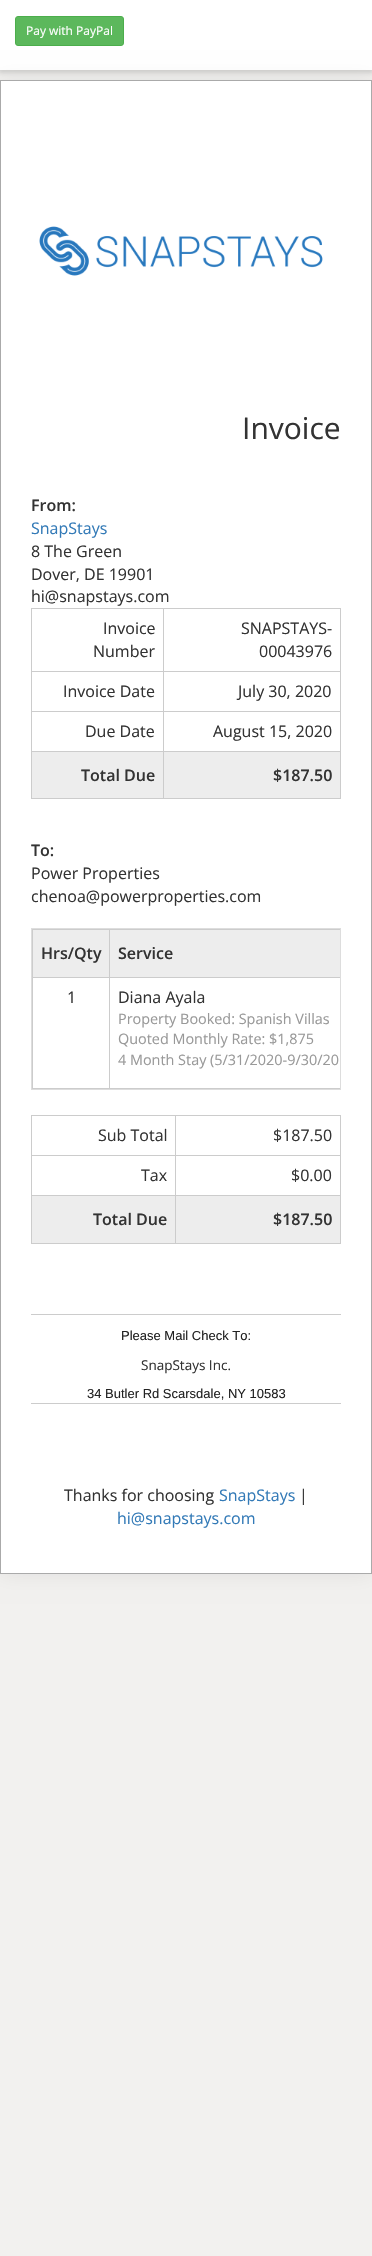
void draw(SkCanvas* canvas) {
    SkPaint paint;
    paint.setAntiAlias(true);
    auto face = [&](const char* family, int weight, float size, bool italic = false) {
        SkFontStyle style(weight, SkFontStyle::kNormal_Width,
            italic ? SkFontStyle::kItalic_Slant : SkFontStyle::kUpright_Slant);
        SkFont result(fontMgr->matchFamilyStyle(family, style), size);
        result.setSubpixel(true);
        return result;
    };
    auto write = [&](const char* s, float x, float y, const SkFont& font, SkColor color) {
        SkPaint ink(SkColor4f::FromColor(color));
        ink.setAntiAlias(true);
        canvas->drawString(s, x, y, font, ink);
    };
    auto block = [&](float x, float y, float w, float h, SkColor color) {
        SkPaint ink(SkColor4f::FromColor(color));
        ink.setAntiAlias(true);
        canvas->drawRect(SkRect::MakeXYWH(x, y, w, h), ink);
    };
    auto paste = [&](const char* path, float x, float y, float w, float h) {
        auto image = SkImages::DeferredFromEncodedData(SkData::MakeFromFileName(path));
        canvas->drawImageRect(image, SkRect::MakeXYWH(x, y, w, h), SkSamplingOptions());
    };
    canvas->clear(SkColorSetRGB(242, 241, 239));
    paint.setColor(SkColorSetARGB(38, 0, 0, 0));
    paint.setMaskFilter(SkMaskFilter::MakeBlur(kNormal_SkBlurStyle, 2.5f));
    canvas->drawRect(SkRect::MakeXYWH(-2, -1, 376, 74), paint);
    paint.setMaskFilter(nullptr);
    block(0, 0, 372, 70, SK_ColorWHITE);
    paint.setColor(SkColorSetRGB(92, 184, 92));
    canvas->drawRoundRect(SkRect::MakeXYWH(15.5f, 16.5f, 108, 29), 2.5f, 2.5f, paint);
    paint.setStyle(SkPaint::kStroke_Style);
    paint.setStrokeWidth(1);
    paint.setColor(SkColorSetRGB(76, 174, 76));
    canvas->drawRoundRect(SkRect::MakeXYWH(15.5f, 16.5f, 108, 29), 2.5f, 2.5f, paint);
    auto kFont1 = face("Open Sans", 400, 12);
    write("Pay with PayPal", 26, 35, kFont1, SK_ColorWHITE);
    paint.setStyle(SkPaint::kFill_Style);
    paint.setColor(SkColorSetARGB(18, 0, 0, 0));
    paint.setMaskFilter(SkMaskFilter::MakeBlur(kNormal_SkBlurStyle, 10));
    canvas->drawRect(SkRect::MakeXYWH(0, 80, 372, 1494), paint);
    paint.setMaskFilter(nullptr);
    paint.setColor(SK_ColorWHITE);
    canvas->drawRect(SkRect::MakeXYWH(0.5f, 80.5f, 371, 1493), paint);
    paint.setStyle(SkPaint::kStroke_Style);
    paint.setColor(SkColorSetRGB(170, 170, 170));
    canvas->drawRect(SkRect::MakeXYWH(0.5f, 80.5f, 371, 1493), paint);
    paste("pic1.png", 39, 226, 284, 50);
    auto kFont2 = face("Open Sans", 400, 30);
    write("Invoice", 242, 439, kFont2, SkColorSetRGB(51, 51, 51));
    auto kFont3 = face("Open Sans", 600, 16);
    write("From:", 31, 511, kFont3, SkColorSetRGB(51, 51, 51));
    auto kFont4 = face("Open Sans", 400, 16);
    write("SnapStays", 31, 534, kFont4, SkColorSetRGB(51, 122, 183));
    write("8 The Green", 31, 557, kFont4, SkColorSetRGB(51, 51, 51));
    write("Dover, DE 19901", 31, 580, kFont4, SkColorSetRGB(51, 51, 51));
    write("hi@snapstays.com", 31, 602, kFont4, SkColorSetRGB(51, 51, 51));
    block(31, 608, 310, 1, SkColorSetRGB(204, 204, 204));
    block(340, 608, 1, 191, SkColorSetRGB(204, 204, 204));
    block(31, 798, 310, 1, SkColorSetRGB(204, 204, 204));
    block(31, 608, 1, 191, SkColorSetRGB(204, 204, 204));
    write("Invoice", 103, 634, kFont4, SkColorSetRGB(51, 51, 51));
    write("Number", 93, 657, kFont4, SkColorSetRGB(51, 51, 51));
    block(163, 671, 178, 1, SkColorSetRGB(204, 204, 204));
    block(163, 711, 178, 1, SkColorSetRGB(204, 204, 204));
    block(163, 751, 178, 1, SkColorSetRGB(204, 204, 204));
    block(163, 751, 1, 48, SkColorSetRGB(204, 204, 204));
    block(31, 751, 133, 1, SkColorSetRGB(204, 204, 204));
    block(163, 711, 1, 41, SkColorSetRGB(204, 204, 204));
    block(31, 711, 133, 1, SkColorSetRGB(204, 204, 204));
    block(163, 671, 1, 41, SkColorSetRGB(204, 204, 204));
    block(31, 671, 133, 1, SkColorSetRGB(204, 204, 204));
    block(163, 608, 1, 64, SkColorSetRGB(204, 204, 204));
    write("SNAPSTAYS-", 241, 634, kFont4, SkColorSetRGB(51, 51, 51));
    write("00043976", 259, 657, kFont4, SkColorSetRGB(51, 51, 51));
    write("Invoice Date", 63, 697, kFont4, SkColorSetRGB(51, 51, 51));
    write("July 30, 2020", 238, 697, kFont4, SkColorSetRGB(51, 51, 51));
    write("Due Date", 85, 737, kFont4, SkColorSetRGB(51, 51, 51));
    write("August 15, 2020", 213, 737, kFont4, SkColorSetRGB(51, 51, 51));
    block(32, 752, 131, 46, SkColorSetRGB(237, 237, 237));
    write("Total Due", 81, 781, kFont3, SkColorSetRGB(51, 51, 51));
    block(164, 752, 176, 46, SkColorSetRGB(237, 237, 237));
    write("$187.50", 273, 781, kFont3, SkColorSetRGB(51, 51, 51));
    write("To:", 31, 856, kFont3, SkColorSetRGB(51, 51, 51));
    write("Power Properties", 31, 879, kFont4, SkColorSetRGB(51, 51, 51));
    write("chenoa@powerproperties.com", 31, 902, kFont4, SkColorSetRGB(51, 51, 51));
    paint.setColor(SkColorSetRGB(221, 221, 221));
    canvas->drawRect(SkRect::MakeXYWH(31.5f, 928.5f, 309, 161), paint);
    block(32, 929, 308, 1, SkColorSetRGB(204, 204, 204));
    block(32, 1088, 308, 1, SkColorSetRGB(204, 204, 204));
    block(32, 929, 1, 160, SkColorSetRGB(204, 204, 204));
    block(33, 930, 76, 47, SkColorSetRGB(237, 237, 237));
    write("Hrs/Qty", 41, 959, kFont3, SkColorSetRGB(51, 51, 51));
    block(110, 930, 230, 47, SkColorSetRGB(237, 237, 237));
    block(109, 977, 231, 1, SkColorSetRGB(204, 204, 204));
    block(109, 977, 1, 112, SkColorSetRGB(204, 204, 204));
    block(32, 977, 78, 1, SkColorSetRGB(204, 204, 204));
    block(109, 929, 1, 49, SkColorSetRGB(204, 204, 204));
    write("Service", 118, 959, kFont3, SkColorSetRGB(51, 51, 51));
    write("1", 67, 1003, kFont4, SkColorSetRGB(51, 51, 51));
    write("Diana Ayala", 118, 1003, kFont4, SkColorSetRGB(51, 51, 51));
    auto kFont5 = face("Open Sans", 400, 14.4f);
    write("Property Booked: Spanish Villas", 118, 1024, kFont5, SkColorSetRGB(153, 153, 153));
    write("Quoted Monthly Rate: $1,875", 118, 1044, kFont5, SkColorSetRGB(153, 153, 153));
    write("4 Month Stay (5/31/2020-9/30/20", 118, 1065, kFont5, SkColorSetRGB(153, 153, 153));
    block(31, 1115, 310, 1, SkColorSetRGB(204, 204, 204));
    block(340, 1115, 1, 129, SkColorSetRGB(204, 204, 204));
    block(31, 1243, 310, 1, SkColorSetRGB(204, 204, 204));
    block(31, 1115, 1, 129, SkColorSetRGB(204, 204, 204));
    write("Sub Total", 98, 1141, kFont4, SkColorSetRGB(51, 51, 51));
    block(175, 1155, 166, 1, SkColorSetRGB(204, 204, 204));
    block(175, 1195, 166, 1, SkColorSetRGB(204, 204, 204));
    block(175, 1195, 1, 49, SkColorSetRGB(204, 204, 204));
    block(31, 1195, 145, 1, SkColorSetRGB(204, 204, 204));
    block(175, 1155, 1, 41, SkColorSetRGB(204, 204, 204));
    block(31, 1155, 145, 1, SkColorSetRGB(204, 204, 204));
    block(175, 1115, 1, 41, SkColorSetRGB(204, 204, 204));
    write("$187.50", 273, 1141, kFont4, SkColorSetRGB(51, 51, 51));
    write("Tax", 141, 1181, kFont4, SkColorSetRGB(51, 51, 51));
    write("$0.00", 291, 1181, kFont4, SkColorSetRGB(51, 51, 51));
    block(32, 1196, 143, 47, SkColorSetRGB(237, 237, 237));
    write("Total Due", 93, 1225, kFont3, SkColorSetRGB(51, 51, 51));
    block(176, 1196, 164, 47, SkColorSetRGB(237, 237, 237));
    write("$187.50", 273, 1225, kFont3, SkColorSetRGB(51, 51, 51));
    block(31, 1314, 310, 1, SkColorSetRGB(204, 204, 204));
    block(31, 1403, 310, 1, SkColorSetRGB(204, 204, 204));
    auto kFont6 = face("Liberation Sans", 400, 13);
    write("Please Mail Check To:", 121, 1340, kFont6, SkColorSetRGB(34, 34, 34));
    auto kFont7 = face("Open Sans", 400, 13.5f);
    write("SnapStays Inc.", 141, 1370, kFont7, SkColorSetRGB(51, 51, 51));
    write("34 Butler Rd Scarsdale, NY 10583", 87, 1398, kFont6, SkColorSetRGB(34, 34, 34));
    write("Thanks for choosing", 64, 1501, kFont4, SkColorSetRGB(51, 51, 51));
    write("SnapStays", 219, 1501, kFont4, SkColorSetRGB(51, 122, 183));
    write("|", 299, 1501, kFont4, SkColorSetRGB(51, 51, 51));
    write("hi@snapstays.com", 117, 1524, kFont4, SkColorSetRGB(51, 122, 183));
}
